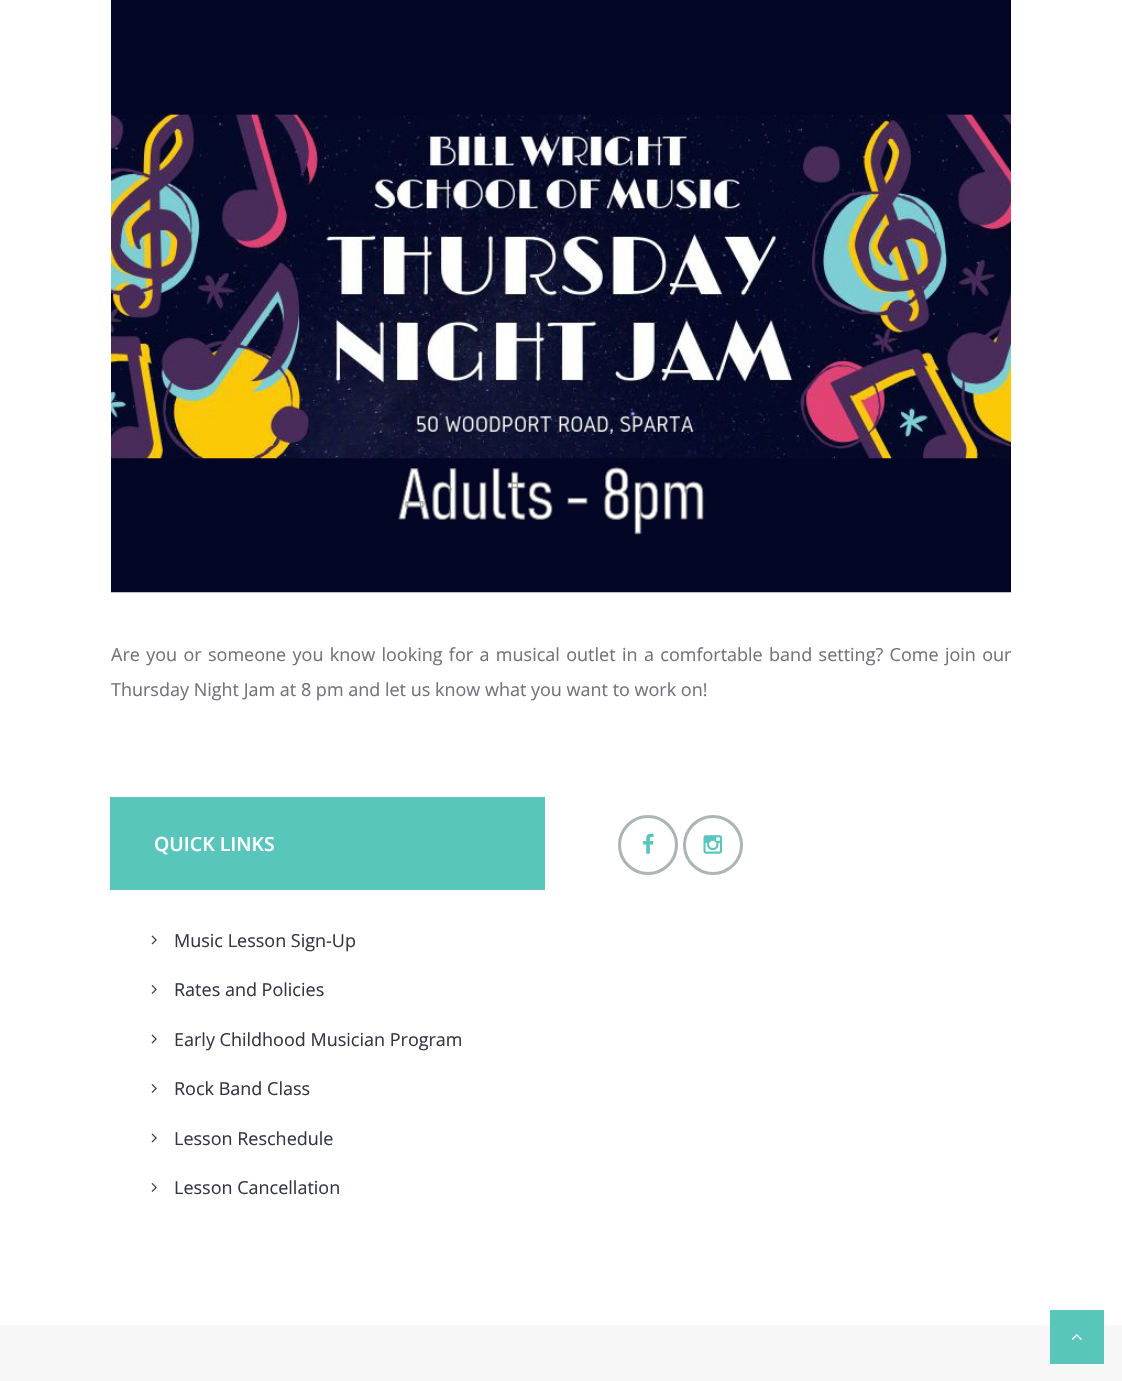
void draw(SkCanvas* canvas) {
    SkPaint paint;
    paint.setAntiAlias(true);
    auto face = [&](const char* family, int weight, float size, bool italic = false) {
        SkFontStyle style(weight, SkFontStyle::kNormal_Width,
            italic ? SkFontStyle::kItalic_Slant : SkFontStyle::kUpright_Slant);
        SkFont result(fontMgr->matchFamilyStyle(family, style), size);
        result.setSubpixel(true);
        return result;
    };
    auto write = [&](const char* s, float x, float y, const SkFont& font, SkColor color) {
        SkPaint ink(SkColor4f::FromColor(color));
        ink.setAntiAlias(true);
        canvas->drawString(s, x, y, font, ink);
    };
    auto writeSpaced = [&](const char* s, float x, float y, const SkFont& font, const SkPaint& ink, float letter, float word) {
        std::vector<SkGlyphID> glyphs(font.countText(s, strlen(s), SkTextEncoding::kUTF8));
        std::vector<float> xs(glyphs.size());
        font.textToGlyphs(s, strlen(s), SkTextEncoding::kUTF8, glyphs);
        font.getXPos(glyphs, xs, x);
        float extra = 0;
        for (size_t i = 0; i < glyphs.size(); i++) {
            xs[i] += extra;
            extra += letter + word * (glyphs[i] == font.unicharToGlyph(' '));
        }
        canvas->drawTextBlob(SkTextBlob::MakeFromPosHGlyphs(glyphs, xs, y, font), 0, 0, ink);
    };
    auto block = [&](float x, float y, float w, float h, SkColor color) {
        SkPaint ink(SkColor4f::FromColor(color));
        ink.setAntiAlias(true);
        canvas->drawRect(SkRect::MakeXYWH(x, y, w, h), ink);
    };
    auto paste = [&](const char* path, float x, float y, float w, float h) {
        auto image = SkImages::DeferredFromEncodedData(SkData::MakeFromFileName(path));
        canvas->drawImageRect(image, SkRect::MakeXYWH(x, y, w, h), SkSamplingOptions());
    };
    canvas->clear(SK_ColorWHITE);
    paste("pic1.png", 111, 0, 900, 593);
    auto kFont1 = face("Open Sans", 400, 18);
    paint.setColor(SkColorSetRGB(112, 115, 125));
    writeSpaced("Are you or someone you know looking for a musical outlet in a comfortable band setting? Come join our", 111, 661, kFont1, paint, 0, 1.7f);
    write("Thursday Night Jam at 8 pm and let us know what you want to work on!", 111, 696, kFont1, SkColorSetRGB(112, 115, 125));
    block(110, 797, 435, 93, SkColorSetRGB(89, 198, 188));
    auto kFont2 = face("Open Sans", 600, 19.5f);
    write("QUICK LINKS", 154, 851, kFont2, SK_ColorWHITE);
    paste("pic2.png", 151, 935, 6, 10);
    write("Music Lesson Sign-Up", 174, 947, kFont1, SkColorSetRGB(51, 55, 69));
    paste("pic3.png", 151, 985, 6, 9);
    write("Rates and Policies", 174, 996, kFont1, SkColorSetRGB(51, 55, 69));
    paste("pic2.png", 151, 1034, 6, 10);
    write("Early Childhood Musician Program", 174, 1046, kFont1, SkColorSetRGB(51, 55, 69));
    paste("pic3.png", 151, 1084, 6, 9);
    write("Rock Band Class", 174, 1095, kFont1, SkColorSetRGB(51, 55, 69));
    paste("pic2.png", 151, 1133, 6, 10);
    write("Lesson Reschedule", 174, 1145, kFont1, SkColorSetRGB(51, 55, 69));
    paste("pic3.png", 151, 1183, 6, 9);
    write("Lesson Cancellation", 174, 1194, kFont1, SkColorSetRGB(51, 55, 69));
    paint.setStyle(SkPaint::kStroke_Style);
    paint.setStrokeWidth(3);
    paint.setColor(SkColorSetRGB(172, 180, 182));
    canvas->drawCircle(648, 845, 28.5f, paint);
    paste("pic4.png", 643, 833, 11, 21);
    canvas->drawCircle(713, 845, 28.5f, paint);
    paste("pic5.png", 703, 835, 19, 19);
    block(0, 1325, 1122, 56, SkColorSetRGB(247, 247, 247));
    block(1050, 1310, 54, 54, SkColorSetRGB(89, 198, 188));
    paste("pic6.png", 1071, 1334, 11, 6);
}
